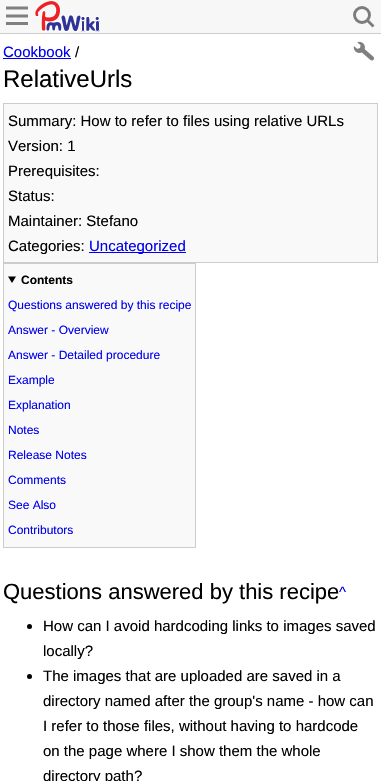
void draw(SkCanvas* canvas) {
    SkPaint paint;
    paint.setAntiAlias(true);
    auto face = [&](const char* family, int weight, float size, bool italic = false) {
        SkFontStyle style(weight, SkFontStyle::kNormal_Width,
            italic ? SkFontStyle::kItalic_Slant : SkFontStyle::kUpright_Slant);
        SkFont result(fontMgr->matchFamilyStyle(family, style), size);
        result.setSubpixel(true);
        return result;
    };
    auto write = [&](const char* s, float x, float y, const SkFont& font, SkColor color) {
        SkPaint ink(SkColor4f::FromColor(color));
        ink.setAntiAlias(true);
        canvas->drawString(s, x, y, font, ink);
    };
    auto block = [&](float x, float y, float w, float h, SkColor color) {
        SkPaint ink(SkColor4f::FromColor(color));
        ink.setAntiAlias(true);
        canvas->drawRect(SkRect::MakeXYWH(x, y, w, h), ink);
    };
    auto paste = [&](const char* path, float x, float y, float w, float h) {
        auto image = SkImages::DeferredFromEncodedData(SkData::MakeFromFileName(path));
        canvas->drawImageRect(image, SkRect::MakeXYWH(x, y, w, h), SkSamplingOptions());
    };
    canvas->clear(SkColorSetRGB(247, 247, 247));
    block(0, 33, 381, 1, SkColorSetRGB(204, 204, 204));
    paste("pic1.png", 34, 0, 66, 32);
    paint.setStyle(SkPaint::kStroke_Style);
    paint.setStrokeWidth(2.9f);
    paint.setColor(SkColorSetRGB(127, 127, 127));
    canvas->drawPath(SkPathBuilder().moveTo(6, 8).lineTo(28, 8).moveTo(6, 16).lineTo(28, 16).moveTo(6, 23.5f).lineTo(28, 23.5f).detach(), paint);
    paint.setColor(SkColorSetRGB(124, 124, 124));
    canvas->drawCircle(362, 15, 7.5f, paint);
    canvas->drawPath(SkPathBuilder().moveTo(373.5f, 26.5f).lineTo(367.5f, 20.5f).detach(), paint);
    block(0, 34, 381, 747, SK_ColorWHITE);
    auto kFont1 = face("Liberation Sans", 400, 15);
    write("Cookbook", 3, 57, kFont1, SkColorSetRGB(0, 0, 238));
    block(3, 58, 68, 1, SkColorSetRGB(0, 0, 238));
    write("/", 75, 57, kFont1, SK_ColorBLACK);
    auto kFont2 = face("Liberation Sans", 400, 24);
    write("RelativeUrls", 3, 87, kFont2, SK_ColorBLACK);
    paste("pic2.png", 353, 41, 21, 20);
    paint.setStyle(SkPaint::kFill_Style);
    paint.setColor(SkColorSetRGB(249, 249, 249));
    canvas->drawRect(SkRect::MakeXYWH(3.5f, 103.5f, 374, 159), paint);
    paint.setStyle(SkPaint::kStroke_Style);
    paint.setStrokeWidth(1);
    paint.setColor(SkColorSetRGB(204, 204, 204));
    canvas->drawRect(SkRect::MakeXYWH(3.5f, 103.5f, 374, 159), paint);
    write("Summary: How to refer to files using relative URLs", 8, 126, kFont1, SK_ColorBLACK);
    write("Version: 1", 8, 151, kFont1, SK_ColorBLACK);
    write("Prerequisites:", 8, 176, kFont1, SK_ColorBLACK);
    write("Status:", 8, 201, kFont1, SK_ColorBLACK);
    write("Maintainer: Stefano", 8, 226, kFont1, SK_ColorBLACK);
    write("Categories:", 8, 251, kFont1, SK_ColorBLACK);
    block(89, 252, 97, 1, SkColorSetRGB(0, 0, 238));
    write("Uncategorized", 89, 251, kFont1, SkColorSetRGB(0, 0, 238));
    paint.setStyle(SkPaint::kFill_Style);
    paint.setColor(SkColorSetRGB(249, 249, 249));
    canvas->drawRect(SkRect::MakeXYWH(3.5f, 263.5f, 192, 284), paint);
    paint.setStyle(SkPaint::kStroke_Style);
    paint.setColor(SkColorSetRGB(204, 204, 204));
    canvas->drawRect(SkRect::MakeXYWH(3.5f, 263.5f, 192, 284), paint);
    paint.setStyle(SkPaint::kFill_Style);
    paint.setColor(SK_ColorBLACK);
    canvas->drawPath(SkPathBuilder().moveTo(8, 276.5f).lineTo(16, 276.5f).lineTo(12, 283).close().detach(), paint);
    auto kFont3 = face("Liberation Sans", 700, 12);
    write("Contents", 21, 284, kFont3, SK_ColorBLACK);
    auto kFont4 = face("Liberation Sans", 400, 12);
    write("Questions answered by this recipe", 8, 309, kFont4, SkColorSetRGB(0, 0, 238));
    write("Answer - Overview", 8, 334, kFont4, SkColorSetRGB(0, 0, 238));
    write("Answer - Detailed procedure", 8, 359, kFont4, SkColorSetRGB(0, 0, 238));
    write("Example", 8, 384, kFont4, SkColorSetRGB(0, 0, 238));
    write("Explanation", 8, 409, kFont4, SkColorSetRGB(0, 0, 238));
    write("Notes", 8, 434, kFont4, SkColorSetRGB(0, 0, 238));
    write("Release Notes", 8, 459, kFont4, SkColorSetRGB(0, 0, 238));
    write("Comments", 8, 484, kFont4, SkColorSetRGB(0, 0, 238));
    write("See Also", 8, 509, kFont4, SkColorSetRGB(0, 0, 238));
    write("Contributors", 8, 534, kFont4, SkColorSetRGB(0, 0, 238));
    auto kFont5 = face("Liberation Sans", 400, 22);
    write("Questions answered by this recipe", 3, 599, kFont5, SK_ColorBLACK);
    write("^", 339, 597, kFont1, SkColorSetRGB(0, 0, 238));
    canvas->drawCircle(29.5f, 626.5f, 2.5f, paint);
    write("How can I avoid hardcoding links to images saved", 43, 631, kFont1, SK_ColorBLACK);
    write("locally?", 43, 656, kFont1, SK_ColorBLACK);
    canvas->drawCircle(29.5f, 676.5f, 2.5f, paint);
    write("The images that are uploaded are saved in a", 43, 681, kFont1, SK_ColorBLACK);
    write("directory named after the group's name - how can", 43, 706, kFont1, SK_ColorBLACK);
    write("I refer to those files, without having to hardcode", 43, 731, kFont1, SK_ColorBLACK);
    write("on the page where I show them the whole", 43, 756, kFont1, SK_ColorBLACK);
    write("directory path?", 43, 781, kFont1, SK_ColorBLACK);
}
